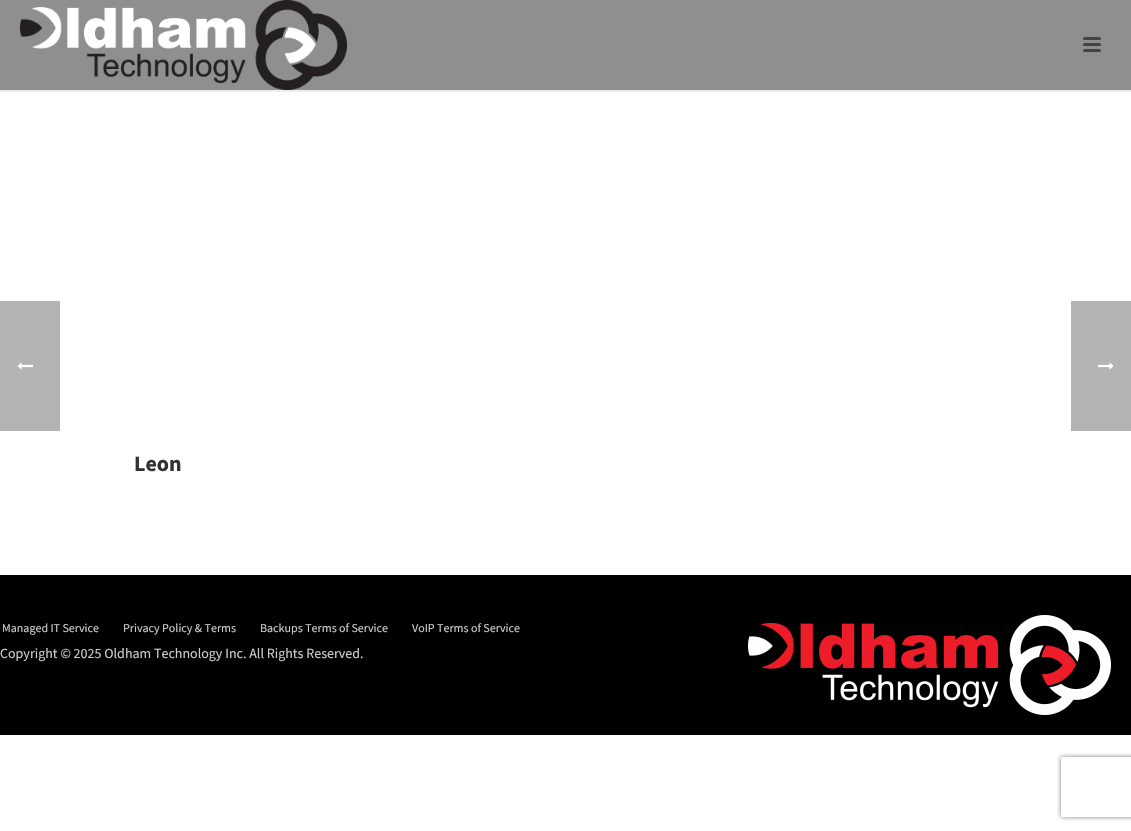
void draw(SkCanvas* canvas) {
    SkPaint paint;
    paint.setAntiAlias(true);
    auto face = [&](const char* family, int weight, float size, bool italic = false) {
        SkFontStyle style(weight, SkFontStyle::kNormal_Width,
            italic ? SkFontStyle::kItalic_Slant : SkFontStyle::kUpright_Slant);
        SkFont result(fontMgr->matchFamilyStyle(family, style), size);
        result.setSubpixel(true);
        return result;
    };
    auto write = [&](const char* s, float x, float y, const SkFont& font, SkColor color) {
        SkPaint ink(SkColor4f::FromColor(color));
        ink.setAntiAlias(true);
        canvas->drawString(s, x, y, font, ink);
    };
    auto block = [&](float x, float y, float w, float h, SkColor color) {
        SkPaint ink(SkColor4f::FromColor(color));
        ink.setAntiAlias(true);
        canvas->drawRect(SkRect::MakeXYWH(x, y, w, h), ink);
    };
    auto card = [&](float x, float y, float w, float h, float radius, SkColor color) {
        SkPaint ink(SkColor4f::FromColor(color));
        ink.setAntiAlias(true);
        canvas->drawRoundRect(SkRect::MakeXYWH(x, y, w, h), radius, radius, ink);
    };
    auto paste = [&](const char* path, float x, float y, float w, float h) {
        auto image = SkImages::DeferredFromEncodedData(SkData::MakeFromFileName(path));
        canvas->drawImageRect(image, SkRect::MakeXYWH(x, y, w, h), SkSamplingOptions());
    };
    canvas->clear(SK_ColorWHITE);
    block(0, 301, 60, 130, SkColorSetRGB(179, 179, 179));
    paste("pic1.png", 17, 362, 16, 8);
    block(1071, 301, 60, 130, SkColorSetRGB(179, 179, 179));
    paste("pic2.png", 1098, 362, 16, 8);
    block(0, 90, 1131, 2, SkColorSetRGB(237, 237, 237));
    block(0, 0, 1131, 90, SkColorSetRGB(143, 143, 143));
    paste("pic3.png", 20, 0, 327, 90);
    card(1083, 37, 18, 3, 1.5f, SkColorSetRGB(68, 68, 68));
    card(1083, 43, 18, 3, 1.5f, SkColorSetRGB(68, 68, 68));
    card(1083, 49, 18, 3, 1.5f, SkColorSetRGB(68, 68, 68));
    auto kFont1 = face("Source Sans Pro", 700, 22);
    write("Leon", 134, 471, kFont1, SkColorSetRGB(51, 51, 51));
    block(0, 575, 1131, 160, SK_ColorBLACK);
    auto kFont2 = face("Source Sans Pro", 400, 12);
    write("Managed IT Service", 2, 632, kFont2, SkColorSetRGB(204, 204, 204));
    write("Privacy Policy & Terms", 123, 632, kFont2, SkColorSetRGB(204, 204, 204));
    write("Backups Terms of Service", 260, 632, kFont2, SkColorSetRGB(204, 204, 204));
    write("VoIP Terms of Service", 412, 632, kFont2, SkColorSetRGB(204, 204, 204));
    paste("pic4.png", 748, 615, 363, 100);
    auto kFont3 = face("Source Sans Pro", 400, 14);
    write("Copyright © 2025 Oldham Technology Inc. All Rights Reserved.", 0, 658, kFont3, SkColorSetRGB(204, 204, 204));
    canvas->save();
    canvas->clipPath(SkPathBuilder(SkPathFillType::kEvenOdd).moveTo(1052, 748).lineTo(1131, 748).lineTo(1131, 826).lineTo(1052, 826).close().moveTo(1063, 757).lineTo(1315, 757).cubicTo(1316, 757, 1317, 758, 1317, 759).lineTo(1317, 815).cubicTo(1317, 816, 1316, 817, 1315, 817).lineTo(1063, 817).cubicTo(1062, 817, 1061, 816, 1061, 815).lineTo(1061, 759).cubicTo(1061, 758, 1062, 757, 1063, 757).close().detach(), true);
    paint.setColor(SkColorSetRGB(128, 128, 128));
    paint.setMaskFilter(SkMaskFilter::MakeBlur(kNormal_SkBlurStyle, 2.5f));
    canvas->drawRoundRect(SkRect::MakeXYWH(1061, 757, 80, 60), 2, 2, paint);
    paint.setMaskFilter(nullptr);
    canvas->restore();
}
